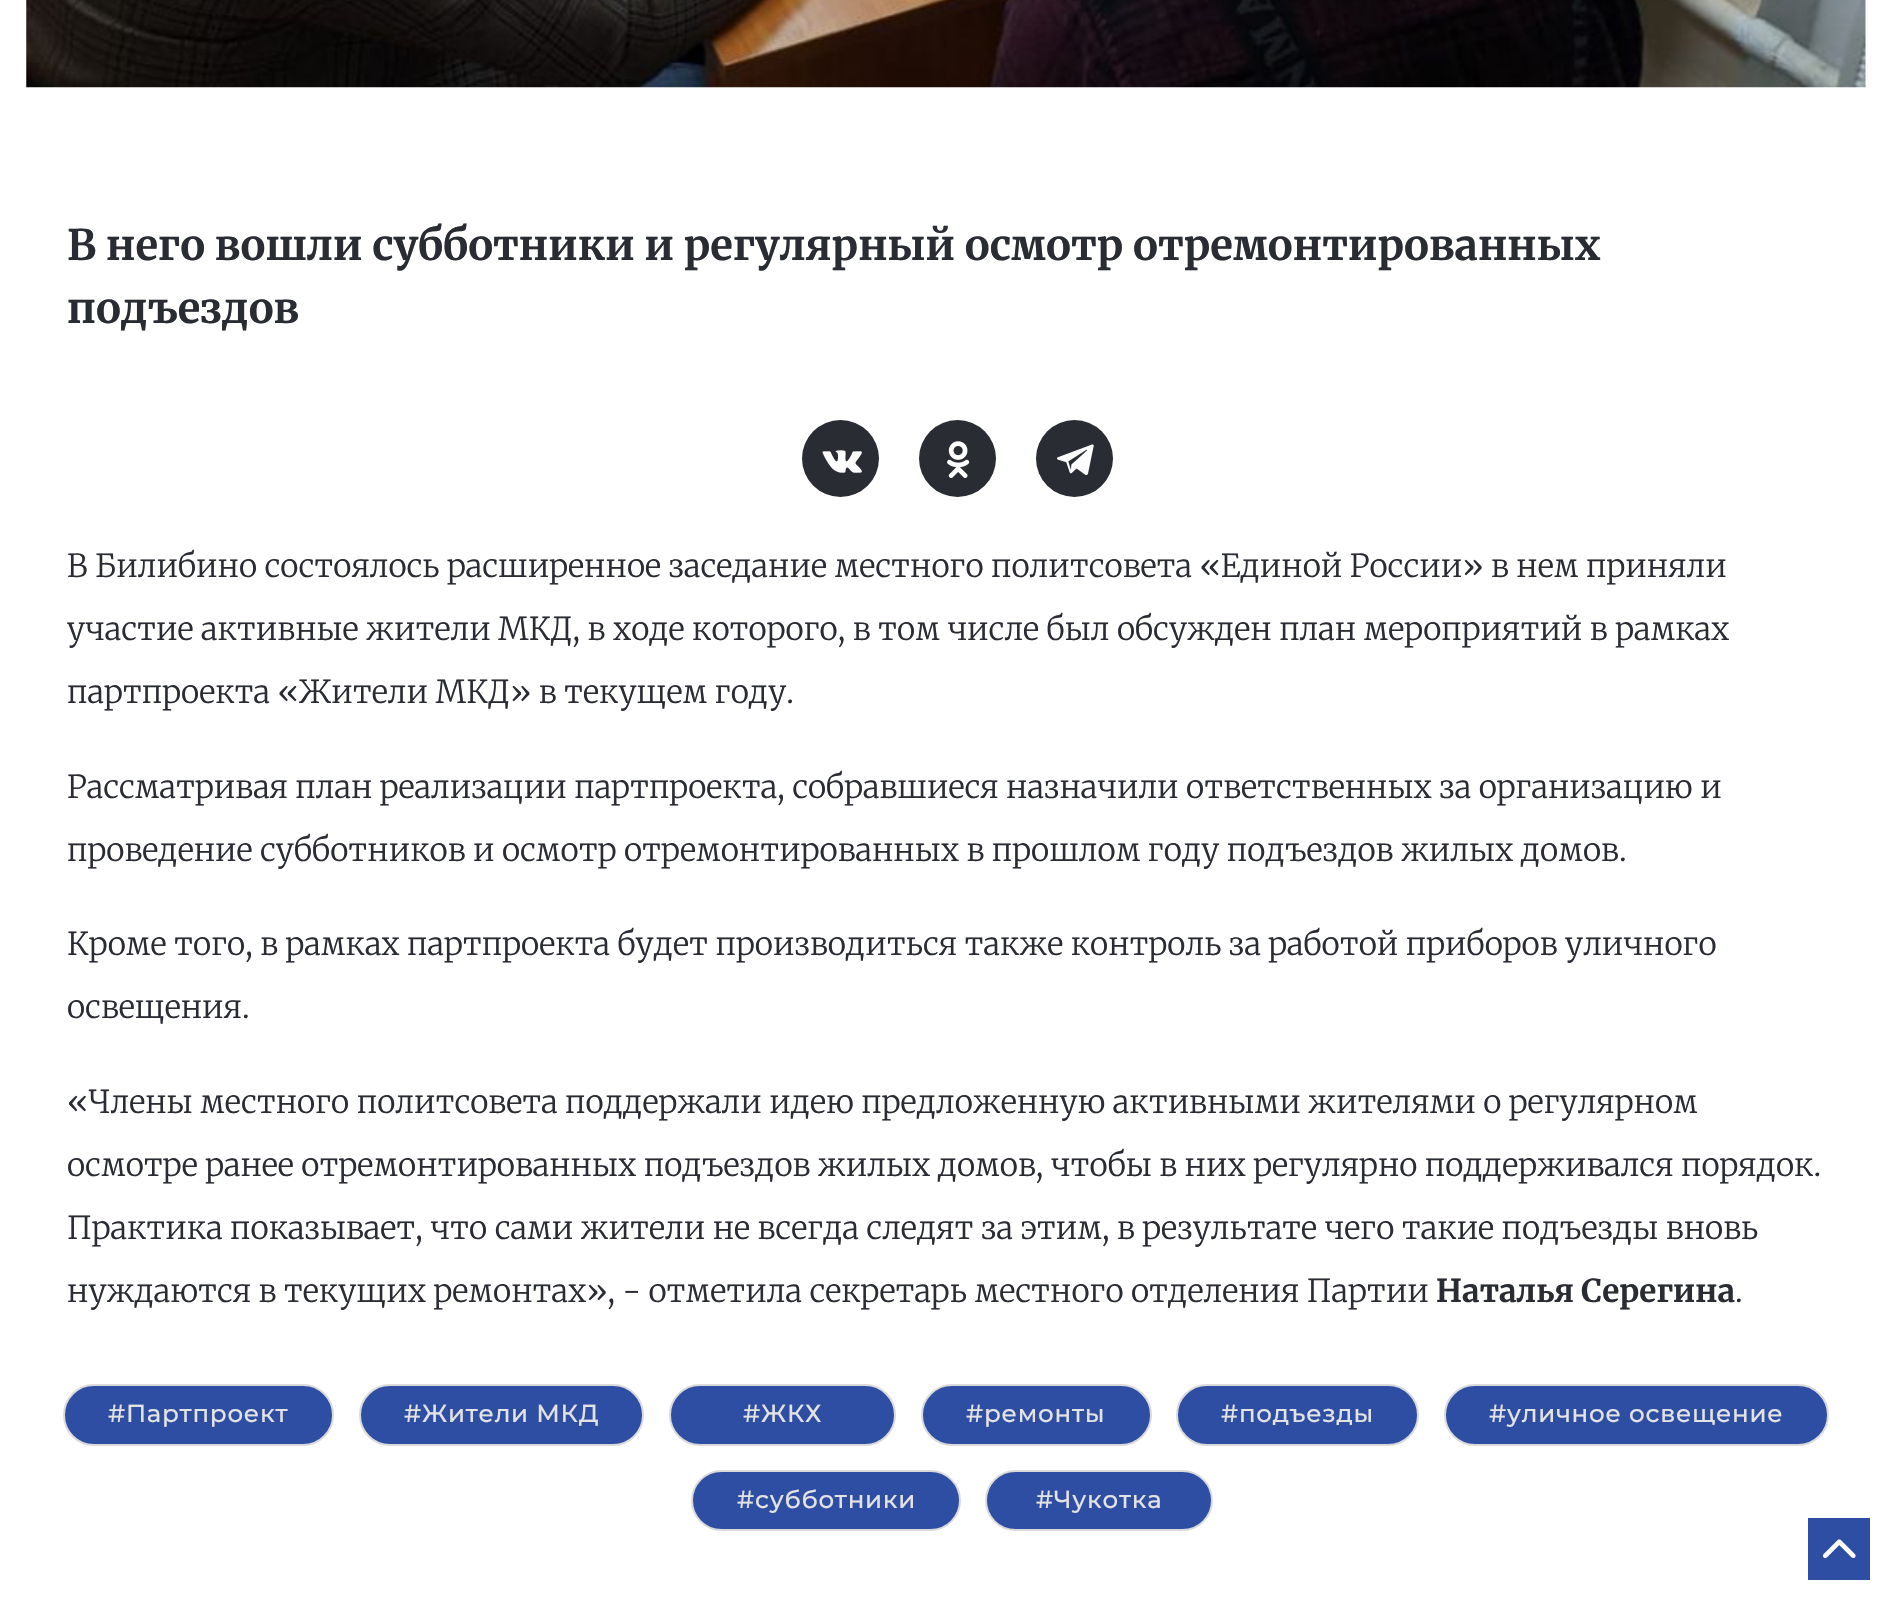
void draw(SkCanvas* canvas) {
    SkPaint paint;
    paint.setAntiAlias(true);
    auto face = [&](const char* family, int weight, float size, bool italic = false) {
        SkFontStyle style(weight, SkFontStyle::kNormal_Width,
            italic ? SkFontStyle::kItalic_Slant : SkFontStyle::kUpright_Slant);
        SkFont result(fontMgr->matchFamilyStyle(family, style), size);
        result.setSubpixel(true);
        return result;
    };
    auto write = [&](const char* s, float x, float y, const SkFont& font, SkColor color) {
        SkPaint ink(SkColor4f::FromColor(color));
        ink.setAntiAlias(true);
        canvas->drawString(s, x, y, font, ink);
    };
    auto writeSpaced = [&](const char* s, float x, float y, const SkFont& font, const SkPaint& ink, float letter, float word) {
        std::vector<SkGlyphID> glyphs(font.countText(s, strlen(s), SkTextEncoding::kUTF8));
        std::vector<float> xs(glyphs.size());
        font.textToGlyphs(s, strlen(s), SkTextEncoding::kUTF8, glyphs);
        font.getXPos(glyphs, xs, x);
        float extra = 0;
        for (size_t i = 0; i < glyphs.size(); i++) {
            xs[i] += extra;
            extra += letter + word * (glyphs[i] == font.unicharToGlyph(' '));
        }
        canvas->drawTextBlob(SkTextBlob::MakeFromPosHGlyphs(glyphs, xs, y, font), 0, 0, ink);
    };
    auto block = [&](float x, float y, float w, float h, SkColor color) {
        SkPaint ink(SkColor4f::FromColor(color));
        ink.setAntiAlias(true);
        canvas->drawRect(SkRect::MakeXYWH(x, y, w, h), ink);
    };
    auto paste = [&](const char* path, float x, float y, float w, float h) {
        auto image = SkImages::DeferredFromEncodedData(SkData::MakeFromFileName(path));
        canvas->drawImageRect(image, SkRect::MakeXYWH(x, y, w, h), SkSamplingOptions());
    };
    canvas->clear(SK_ColorWHITE);
    paste("pic1.png", 26, 0, 1840, 88);
    auto kFont1 = face("Merriweather", 700, 42);
    write("В него вошли субботники и регулярный осмотр отремонтированных", 67, 260, kFont1, SkColorSetRGB(42, 44, 52));
    write("подъездов", 67, 323, kFont1, SkColorSetRGB(42, 44, 52));
    paint.setColor(SkColorSetRGB(42, 44, 52));
    canvas->drawCircle(840.5f, 458.5f, 38.5f, paint);
    paste("pic2.png", 822, 450, 40, 23);
    canvas->drawCircle(957.5f, 458.5f, 38.5f, paint);
    paste("pic3.png", 947, 441, 23, 37);
    canvas->drawCircle(1074.5f, 458.5f, 38.5f, paint);
    paste("pic4.png", 1057, 444, 37, 31);
    auto kFont2 = face("Merriweather", 300, 31.5f);
    write("В Билибино состоялось расширенное заседание местного политсовета «Единой России» в нем приняли", 67, 577, kFont2, SkColorSetRGB(42, 44, 52));
    write("участие активные жители МКД, в ходе которого, в том числе был обсужден план мероприятий в рамках", 67, 640, kFont2, SkColorSetRGB(42, 44, 52));
    write("партпроекта «Жители МКД» в текущем году.", 67, 703, kFont2, SkColorSetRGB(42, 44, 52));
    write("Рассматривая план реализации партпроекта, собравшиеся назначили ответственных за организацию и", 67, 798, kFont2, SkColorSetRGB(42, 44, 52));
    write("проведение субботников и осмотр отремонтированных в прошлом году подъездов жилых домов.", 67, 861, kFont2, SkColorSetRGB(42, 44, 52));
    write("Кроме того, в рамках партпроекта будет производиться также контроль за работой приборов уличного", 67, 955, kFont2, SkColorSetRGB(42, 44, 52));
    write("освещения.", 67, 1018, kFont2, SkColorSetRGB(42, 44, 52));
    write("«Члены местного политсовета поддержали идею предложенную активными жителями о регулярном", 67, 1113, kFont2, SkColorSetRGB(42, 44, 52));
    write("осмотре ранее отремонтированных подъездов жилых домов, чтобы в них регулярно поддерживался порядок.", 67, 1176, kFont2, SkColorSetRGB(42, 44, 52));
    write("Практика показывает, что сами жители не всегда следят за этим, в результате чего такие подъезды вновь", 67, 1239, kFont2, SkColorSetRGB(42, 44, 52));
    write("нуждаются в текущих ремонтах», - отметила секретарь местного отделения Партии", 67, 1302, kFont2, SkColorSetRGB(42, 44, 52));
    auto kFont3 = face("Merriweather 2", 700, 31.5f);
    write("Наталья Серегина", 1436, 1302, kFont3, SkColorSetRGB(42, 44, 52));
    write(".", 1735, 1302, kFont2, SkColorSetRGB(42, 44, 52));
    paint.setColor(SkColorSetRGB(46, 78, 164));
    canvas->drawRoundRect(SkRect::MakeXYWH(64, 1385, 269, 60), 30, 30, paint);
    paint.setStyle(SkPaint::kStroke_Style);
    paint.setStrokeWidth(2);
    paint.setColor(SkColorSetRGB(218, 218, 218));
    canvas->drawRoundRect(SkRect::MakeXYWH(64, 1385, 269, 60), 30, 30, paint);
    auto kFont4 = face("Montserrat", 500, 24.5f);
    paint.setStyle(SkPaint::kFill_Style);
    paint.setColor(SkColorSetRGB(227, 227, 227));
    writeSpaced("#Партпроект", 108, 1422, kFont4, paint, 0.75f, 0);
    paint.setColor(SkColorSetRGB(46, 78, 164));
    canvas->drawRoundRect(SkRect::MakeXYWH(360, 1385, 283, 60), 30, 30, paint);
    paint.setStyle(SkPaint::kStroke_Style);
    paint.setColor(SkColorSetRGB(218, 218, 218));
    canvas->drawRoundRect(SkRect::MakeXYWH(360, 1385, 283, 60), 30, 30, paint);
    paint.setStyle(SkPaint::kFill_Style);
    paint.setColor(SkColorSetRGB(227, 227, 227));
    writeSpaced("#Жители МКД", 404, 1422, kFont4, paint, 0.75f, 0);
    paint.setColor(SkColorSetRGB(46, 78, 164));
    canvas->drawRoundRect(SkRect::MakeXYWH(670, 1385, 225, 60), 30, 30, paint);
    paint.setStyle(SkPaint::kStroke_Style);
    paint.setColor(SkColorSetRGB(218, 218, 218));
    canvas->drawRoundRect(SkRect::MakeXYWH(670, 1385, 225, 60), 30, 30, paint);
    paint.setStyle(SkPaint::kFill_Style);
    paint.setColor(SkColorSetRGB(227, 227, 227));
    writeSpaced("#ЖКХ", 743, 1422, kFont4, paint, 0.75f, 0);
    paint.setColor(SkColorSetRGB(46, 78, 164));
    canvas->drawRoundRect(SkRect::MakeXYWH(922, 1385, 229, 60), 30, 30, paint);
    paint.setStyle(SkPaint::kStroke_Style);
    paint.setColor(SkColorSetRGB(218, 218, 218));
    canvas->drawRoundRect(SkRect::MakeXYWH(922, 1385, 229, 60), 30, 30, paint);
    paint.setStyle(SkPaint::kFill_Style);
    paint.setColor(SkColorSetRGB(227, 227, 227));
    writeSpaced("#ремонты", 966, 1422, kFont4, paint, 0.75f, 0);
    paint.setColor(SkColorSetRGB(46, 78, 164));
    canvas->drawRoundRect(SkRect::MakeXYWH(1177, 1385, 241, 60), 30, 30, paint);
    paint.setStyle(SkPaint::kStroke_Style);
    paint.setColor(SkColorSetRGB(218, 218, 218));
    canvas->drawRoundRect(SkRect::MakeXYWH(1177, 1385, 241, 60), 30, 30, paint);
    paint.setStyle(SkPaint::kFill_Style);
    paint.setColor(SkColorSetRGB(227, 227, 227));
    writeSpaced("#подъезды", 1221, 1422, kFont4, paint, 0.75f, 0);
    paint.setColor(SkColorSetRGB(46, 78, 164));
    canvas->drawRoundRect(SkRect::MakeXYWH(1445, 1385, 383, 60), 30, 30, paint);
    paint.setStyle(SkPaint::kStroke_Style);
    paint.setColor(SkColorSetRGB(218, 218, 218));
    canvas->drawRoundRect(SkRect::MakeXYWH(1445, 1385, 383, 60), 30, 30, paint);
    paint.setStyle(SkPaint::kFill_Style);
    paint.setColor(SkColorSetRGB(227, 227, 227));
    writeSpaced("#уличное освещение", 1489, 1422, kFont4, paint, 0.75f, 0);
    paint.setColor(SkColorSetRGB(46, 78, 164));
    canvas->drawRoundRect(SkRect::MakeXYWH(692, 1471, 268, 59), 29.5f, 29.5f, paint);
    paint.setStyle(SkPaint::kStroke_Style);
    paint.setColor(SkColorSetRGB(218, 218, 218));
    canvas->drawRoundRect(SkRect::MakeXYWH(692, 1471, 268, 59), 29.5f, 29.5f, paint);
    paint.setStyle(SkPaint::kFill_Style);
    paint.setColor(SkColorSetRGB(227, 227, 227));
    writeSpaced("#субботники", 737, 1508, kFont4, paint, 0.75f, 0);
    paint.setColor(SkColorSetRGB(46, 78, 164));
    canvas->drawRoundRect(SkRect::MakeXYWH(986, 1471, 226, 59), 29.5f, 29.5f, paint);
    paint.setStyle(SkPaint::kStroke_Style);
    paint.setColor(SkColorSetRGB(218, 218, 218));
    canvas->drawRoundRect(SkRect::MakeXYWH(986, 1471, 226, 59), 29.5f, 29.5f, paint);
    paint.setStyle(SkPaint::kFill_Style);
    paint.setColor(SkColorSetRGB(227, 227, 227));
    writeSpaced("#Чукотка", 1036, 1508, kFont4, paint, 0.75f, 0);
    block(1808, 1518, 62, 62, SkColorSetRGB(46, 78, 164));
    paste("pic5.png", 1822, 1539, 34, 20);
}
